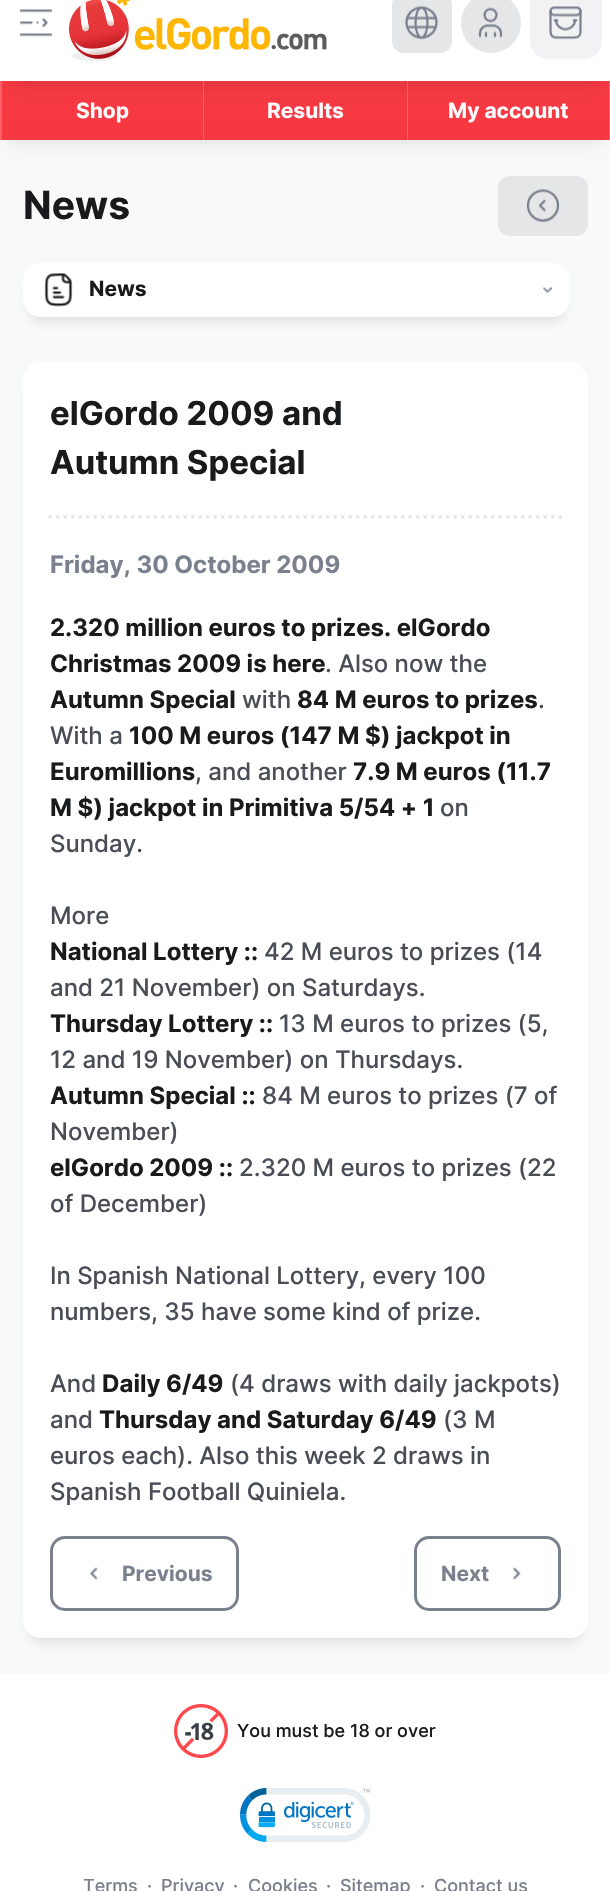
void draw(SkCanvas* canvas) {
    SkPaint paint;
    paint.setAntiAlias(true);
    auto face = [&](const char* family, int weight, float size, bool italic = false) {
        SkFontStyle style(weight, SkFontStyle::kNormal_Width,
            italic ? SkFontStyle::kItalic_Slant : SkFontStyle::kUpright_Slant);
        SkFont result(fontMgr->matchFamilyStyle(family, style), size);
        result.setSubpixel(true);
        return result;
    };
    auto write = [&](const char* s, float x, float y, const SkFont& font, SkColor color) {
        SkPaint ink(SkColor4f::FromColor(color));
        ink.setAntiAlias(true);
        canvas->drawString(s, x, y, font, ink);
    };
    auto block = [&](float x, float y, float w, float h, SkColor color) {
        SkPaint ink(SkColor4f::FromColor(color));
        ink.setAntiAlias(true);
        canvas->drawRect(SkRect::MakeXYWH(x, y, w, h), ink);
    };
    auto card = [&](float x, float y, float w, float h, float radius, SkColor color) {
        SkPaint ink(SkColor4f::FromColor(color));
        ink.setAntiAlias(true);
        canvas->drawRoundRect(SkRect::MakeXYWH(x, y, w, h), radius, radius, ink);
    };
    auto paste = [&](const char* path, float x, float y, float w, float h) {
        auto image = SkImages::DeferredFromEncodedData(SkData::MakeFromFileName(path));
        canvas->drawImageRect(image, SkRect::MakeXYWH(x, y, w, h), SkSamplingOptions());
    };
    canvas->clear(SkColorSetRGB(248, 249, 249));
    paint.setColor(SkColorSetARGB(20, 24, 26, 28));
    paint.setMaskFilter(SkMaskFilter::MakeBlur(kNormal_SkBlurStyle, 12));
    canvas->drawRect(SkRect::MakeXYWH(9, 102, 593, 41), paint);
    paint.setMaskFilter(nullptr);
    paint.setColor(SkColorSetARGB(15, 24, 26, 28));
    paint.setMaskFilter(SkMaskFilter::MakeBlur(kNormal_SkBlurStyle, 6));
    canvas->drawRect(SkRect::MakeXYWH(9, 99, 593, 41), paint);
    paint.setMaskFilter(nullptr);
    block(0, 81, 610, 59, SkColorSetRGB(248, 96, 103));
    block(2, 81, 201, 59, SkColorSetRGB(246, 56, 65));
    block(204, 81, 203, 59, SkColorSetRGB(246, 56, 65));
    block(408, 81, 201, 59, SkColorSetRGB(246, 56, 65));
    paint.setColor(SkColorSetARGB(20, 24, 26, 28));
    paint.setMaskFilter(SkMaskFilter::MakeBlur(kNormal_SkBlurStyle, 12));
    canvas->drawRect(SkRect::MakeXYWH(9, -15, 593, 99), paint);
    paint.setMaskFilter(nullptr);
    paint.setColor(SkColorSetARGB(15, 24, 26, 28));
    paint.setMaskFilter(SkMaskFilter::MakeBlur(kNormal_SkBlurStyle, 6));
    canvas->drawRect(SkRect::MakeXYWH(9, -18, 593, 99), paint);
    paint.setMaskFilter(nullptr);
    block(0, 0, 610, 81, SK_ColorWHITE);
    paste("pic1.png", 20, 9, 32, 28);
    paste("pic2.png", 69, 0, 258, 61);
    card(392, -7, 60, 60, 12, SkColorSetRGB(228, 230, 232));
    paste("pic3.png", 405, 6, 33, 34);
    paint.setColor(SkColorSetRGB(228, 230, 232));
    canvas->drawCircle(491, 23, 30, paint);
    paste("pic4.png", 478, 7, 25, 31);
    card(530, -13, 72, 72, 18, SkColorSetRGB(242, 242, 244));
    paste("pic5.png", 549, 6, 33, 34);
    auto kFont1 = face("Inter", 700, 21);
    write("Shop", 76, 118, kFont1, SK_ColorWHITE);
    write("Results", 267, 118, kFont1, SK_ColorWHITE);
    write("My account", 448, 118, kFont1, SK_ColorWHITE);
    auto kFont2 = face("Inter", 700, 39);
    write("News", 23, 219, kFont2, SkColorSetRGB(24, 26, 28));
    card(498, 176, 90, 60, 12, SkColorSetRGB(228, 230, 232));
    paste("pic6.png", 526, 189, 34, 34);
    paint.setColor(SkColorSetARGB(20, 24, 26, 28));
    paint.setMaskFilter(SkMaskFilter::MakeBlur(kNormal_SkBlurStyle, 6));
    canvas->drawRoundRect(SkRect::MakeXYWH(29, 281, 535, 42), 12, 12, paint);
    paint.setMaskFilter(nullptr);
    paint.setColor(SkColorSetARGB(15, 24, 26, 28));
    paint.setMaskFilter(SkMaskFilter::MakeBlur(kNormal_SkBlurStyle, 4.5f));
    canvas->drawRoundRect(SkRect::MakeXYWH(29, 275, 535, 42), 12, 12, paint);
    paint.setMaskFilter(nullptr);
    card(23, 263, 547, 54, 18, SK_ColorWHITE);
    paste("pic7.png", 44, 273, 29, 34);
    write("News", 89, 296, kFont1, SkColorSetRGB(24, 26, 28));
    paste("pic8.png", 542, 287, 11, 6);
    paint.setColor(SkColorSetARGB(20, 24, 26, 28));
    paint.setMaskFilter(SkMaskFilter::MakeBlur(kNormal_SkBlurStyle, 6));
    canvas->drawRoundRect(SkRect::MakeXYWH(29, 380, 553, 1264), 12, 12, paint);
    paint.setMaskFilter(nullptr);
    paint.setColor(SkColorSetARGB(15, 24, 26, 28));
    paint.setMaskFilter(SkMaskFilter::MakeBlur(kNormal_SkBlurStyle, 4.5f));
    canvas->drawRoundRect(SkRect::MakeXYWH(29, 374, 553, 1264), 12, 12, paint);
    paint.setMaskFilter(nullptr);
    card(23, 362, 565, 1276, 18, SK_ColorWHITE);
    auto kFont3 = face("Inter", 700, 33);
    write("elGordo 2009 and", 50, 425, kFont3, SkColorSetRGB(24, 26, 28));
    write("Autumn Special", 50, 474, kFont3, SkColorSetRGB(24, 26, 28));
    paint.setStyle(SkPaint::kStroke_Style);
    paint.setStrokeWidth(3.8f);
    paint.setStrokeCap(SkPaint::kRound_Cap);
    paint.setColor(SkColorSetRGB(228, 230, 232));
    paint.setPathEffect(SkDashPathEffect::Make({{0, 7.5f}}, 0));
    canvas->drawPath(SkPathBuilder().moveTo(50.2f, 516.8f).lineTo(560.5f, 516.8f).detach(), paint);
    paint.setPathEffect(nullptr);
    auto kFont4 = face("Inter", 700, 24);
    write("Friday, 30 October 2009", 50, 573, kFont4, SkColorSetRGB(122, 128, 141));
    write("2.320 million euros to prizes. elGordo", 50, 636, kFont4, SkColorSetRGB(24, 26, 28));
    write("Christmas 2009 is here", 50, 672, kFont4, SkColorSetRGB(24, 26, 28));
    auto kFont5 = face("Inter", 500, 24);
    write(". Also now the", 325, 672, kFont5, SkColorSetRGB(73, 77, 85));
    write("Autumn Special", 50, 708, kFont4, SkColorSetRGB(24, 26, 28));
    write("with", 242, 708, kFont5, SkColorSetRGB(73, 77, 85));
    write("84 M euros to prizes", 297, 708, kFont4, SkColorSetRGB(24, 26, 28));
    write(".", 538, 708, kFont5, SkColorSetRGB(73, 77, 85));
    write("With a", 50, 744, kFont5, SkColorSetRGB(73, 77, 85));
    write("100 M euros (147 M $) jackpot in", 129, 744, kFont4, SkColorSetRGB(24, 26, 28));
    write("Euromillions", 50, 780, kFont4, SkColorSetRGB(24, 26, 28));
    write(", and another", 195, 780, kFont5, SkColorSetRGB(73, 77, 85));
    write("7.9 M euros (11.7", 353, 780, kFont4, SkColorSetRGB(24, 26, 28));
    write("M $) jackpot in Primitiva 5/54 + 1", 50, 816, kFont4, SkColorSetRGB(24, 26, 28));
    write("on", 440, 816, kFont5, SkColorSetRGB(73, 77, 85));
    write("Sunday.", 50, 852, kFont5, SkColorSetRGB(73, 77, 85));
    write("More", 50, 924, kFont5, SkColorSetRGB(73, 77, 85));
    write("National Lottery ::", 50, 960, kFont4, SkColorSetRGB(24, 26, 28));
    write("42 M euros to prizes (14", 264, 960, kFont5, SkColorSetRGB(73, 77, 85));
    write("and 21 November) on Saturdays.", 50, 996, kFont5, SkColorSetRGB(73, 77, 85));
    write("Thursday Lottery ::", 50, 1032, kFont4, SkColorSetRGB(24, 26, 28));
    write("13 M euros to prizes (5,", 279, 1032, kFont5, SkColorSetRGB(73, 77, 85));
    write("12 and 19 November) on Thursdays.", 50, 1068, kFont5, SkColorSetRGB(73, 77, 85));
    write("Autumn Special ::", 50, 1104, kFont4, SkColorSetRGB(24, 26, 28));
    write("84 M euros to prizes (7 of", 262, 1104, kFont5, SkColorSetRGB(73, 77, 85));
    write("November)", 50, 1140, kFont5, SkColorSetRGB(73, 77, 85));
    write("elGordo 2009 ::", 50, 1176, kFont4, SkColorSetRGB(24, 26, 28));
    write("2.320 M euros to prizes (22", 239, 1176, kFont5, SkColorSetRGB(73, 77, 85));
    write("of December)", 50, 1212, kFont5, SkColorSetRGB(73, 77, 85));
    write("In Spanish National Lottery, every 100", 50, 1284, kFont5, SkColorSetRGB(73, 77, 85));
    write("numbers, 35 have some kind of prize.", 50, 1320, kFont5, SkColorSetRGB(73, 77, 85));
    write("And", 50, 1392, kFont5, SkColorSetRGB(73, 77, 85));
    write("Daily 6/49", 102, 1392, kFont4, SkColorSetRGB(24, 26, 28));
    write("(4 draws with daily jackpots)", 230, 1392, kFont5, SkColorSetRGB(73, 77, 85));
    write("and", 50, 1428, kFont5, SkColorSetRGB(73, 77, 85));
    write("Thursday and Saturday 6/49", 99, 1428, kFont4, SkColorSetRGB(24, 26, 28));
    write("(3 M", 443, 1428, kFont5, SkColorSetRGB(73, 77, 85));
    write("euros each). Also this week 2 draws in", 50, 1464, kFont5, SkColorSetRGB(73, 77, 85));
    write("Spanish Football Quiniela.", 50, 1500, kFont5, SkColorSetRGB(73, 77, 85));
    paint.setStrokeWidth(3);
    paint.setStrokeCap(SkPaint::kButt_Cap);
    paint.setColor(SkColorSetRGB(122, 128, 141));
    canvas->drawRoundRect(SkRect::MakeXYWH(51.5f, 1537.5f, 186, 72), 13.5f, 13.5f, paint);
    paste("pic9.png", 90, 1567, 8, 13);
    write("Previous", 122, 1581, kFont1, SkColorSetRGB(122, 128, 141));
    canvas->drawRoundRect(SkRect::MakeXYWH(415.5f, 1537.5f, 144, 72), 13.5f, 13.5f, paint);
    write("Next", 441, 1581, kFont1, SkColorSetRGB(122, 128, 141));
    paste("pic10.png", 513, 1567, 8, 13);
    block(0, 1674, 610, 217, SK_ColorWHITE);
    paste("pic11.png", 174, 1704, 54, 54);
    auto kFont6 = face("Inter", 500, 18);
    write("You must be 18 or over", 237, 1737, kFont6, SkColorSetRGB(24, 26, 28));
    paste("pic12.png", 240, 1788, 131, 54);
    write("Terms", 83, 1892, kFont6, SkColorSetRGB(122, 128, 141));
    write("·", 147, 1892, kFont6, SkColorSetRGB(122, 128, 141));
    write("Privacy", 161, 1892, kFont6, SkColorSetRGB(122, 128, 141));
    write("·", 233, 1892, kFont6, SkColorSetRGB(122, 128, 141));
    write("Cookies", 248, 1892, kFont6, SkColorSetRGB(122, 128, 141));
    write("·", 326, 1892, kFont6, SkColorSetRGB(122, 128, 141));
    write("Sitemap", 340, 1892, kFont6, SkColorSetRGB(122, 128, 141));
    write("·", 420, 1892, kFont6, SkColorSetRGB(122, 128, 141));
    write("Contact us", 434, 1892, kFont6, SkColorSetRGB(122, 128, 141));
}
